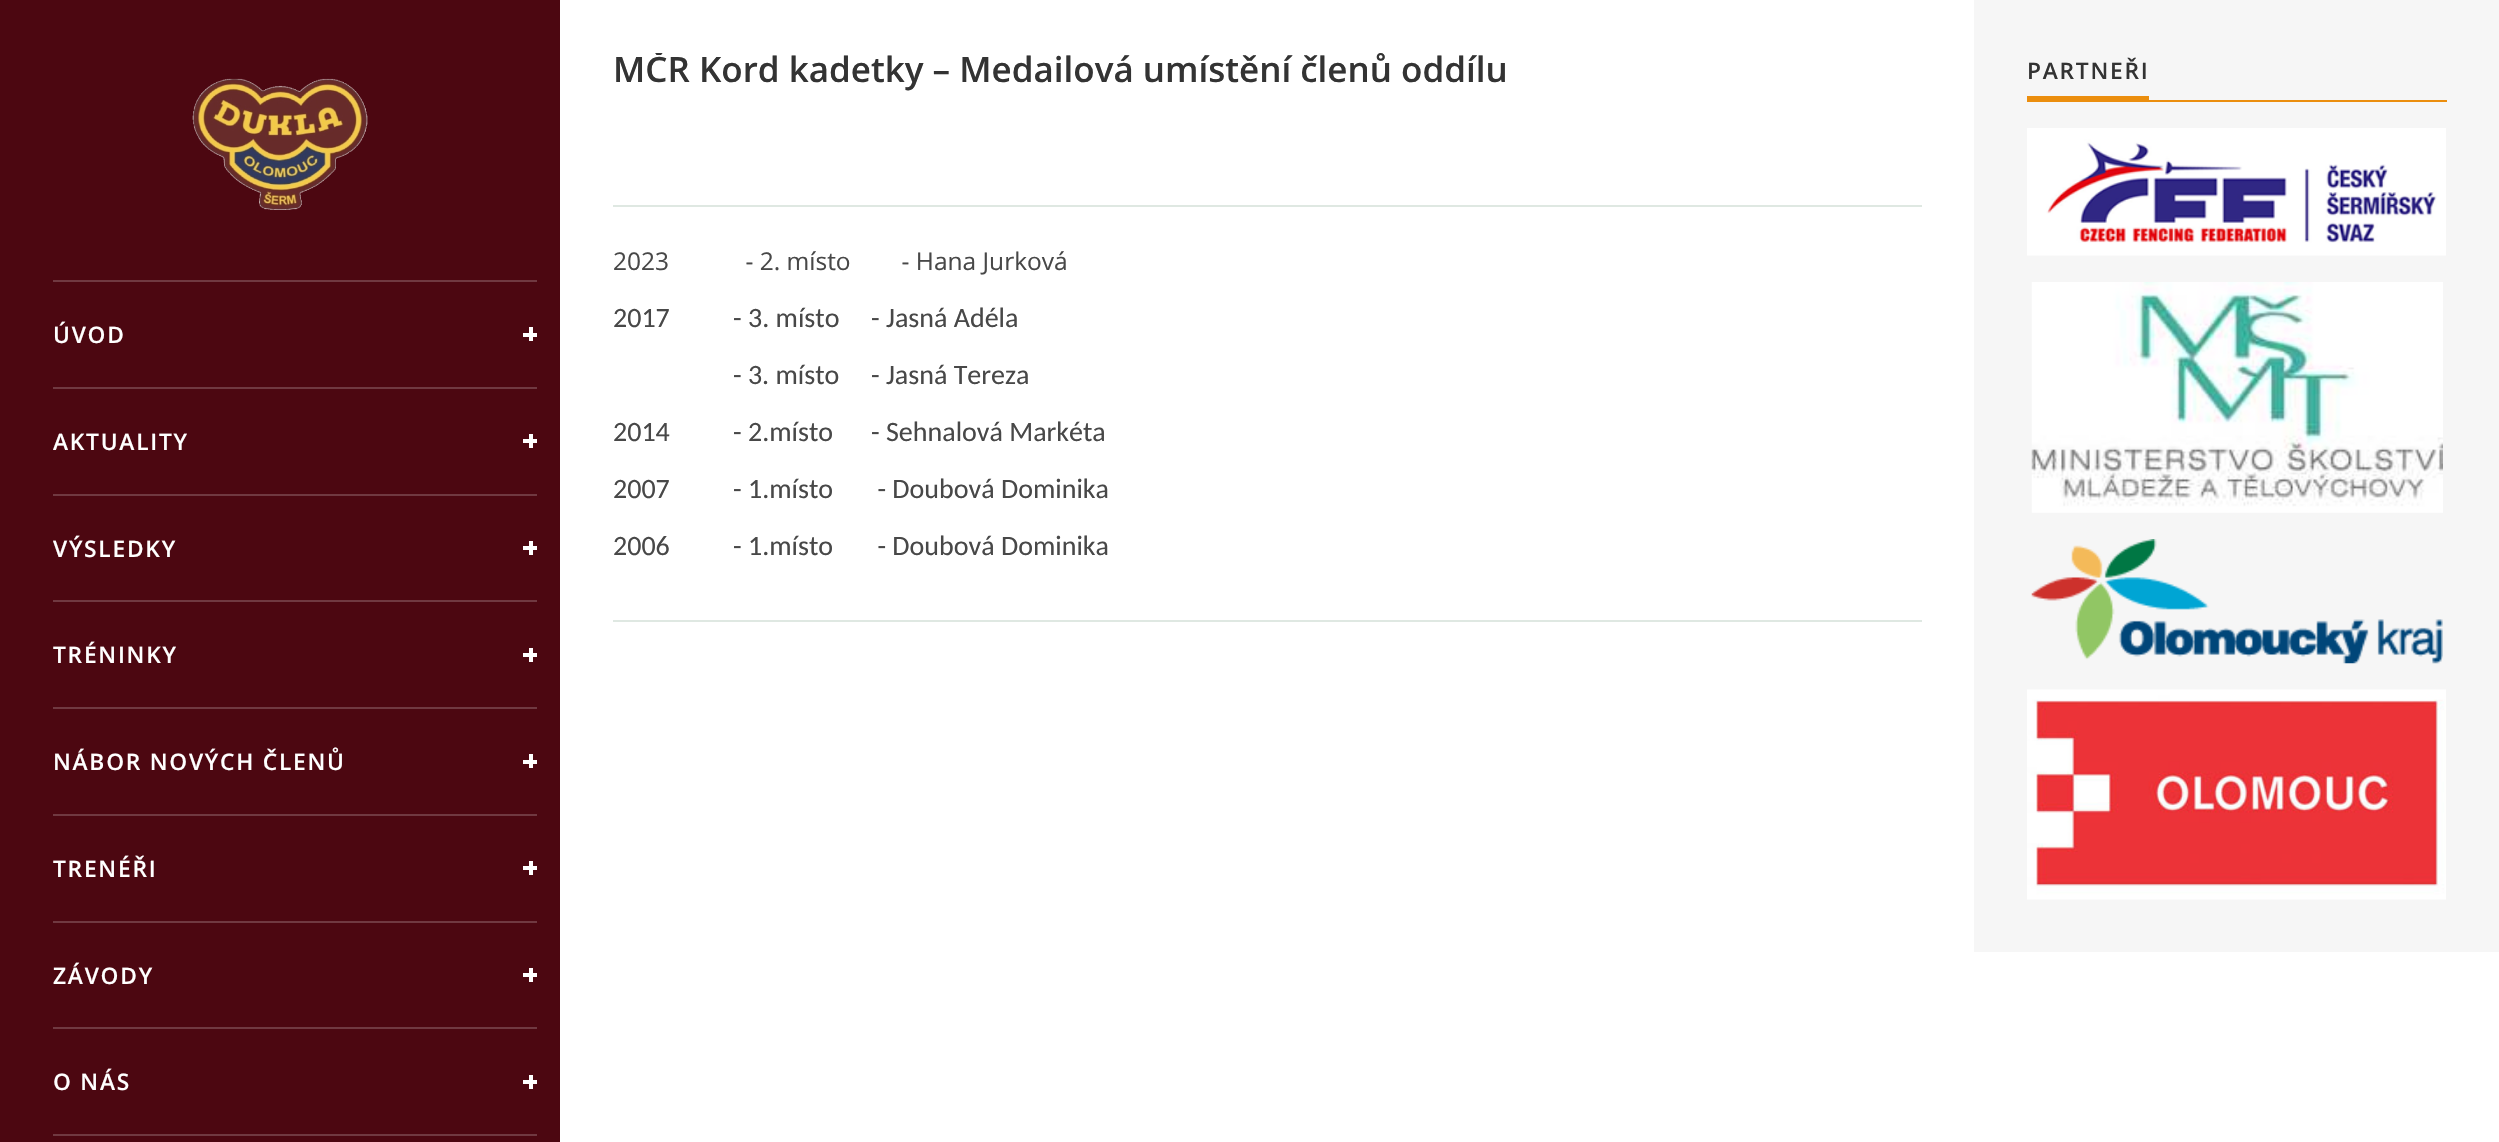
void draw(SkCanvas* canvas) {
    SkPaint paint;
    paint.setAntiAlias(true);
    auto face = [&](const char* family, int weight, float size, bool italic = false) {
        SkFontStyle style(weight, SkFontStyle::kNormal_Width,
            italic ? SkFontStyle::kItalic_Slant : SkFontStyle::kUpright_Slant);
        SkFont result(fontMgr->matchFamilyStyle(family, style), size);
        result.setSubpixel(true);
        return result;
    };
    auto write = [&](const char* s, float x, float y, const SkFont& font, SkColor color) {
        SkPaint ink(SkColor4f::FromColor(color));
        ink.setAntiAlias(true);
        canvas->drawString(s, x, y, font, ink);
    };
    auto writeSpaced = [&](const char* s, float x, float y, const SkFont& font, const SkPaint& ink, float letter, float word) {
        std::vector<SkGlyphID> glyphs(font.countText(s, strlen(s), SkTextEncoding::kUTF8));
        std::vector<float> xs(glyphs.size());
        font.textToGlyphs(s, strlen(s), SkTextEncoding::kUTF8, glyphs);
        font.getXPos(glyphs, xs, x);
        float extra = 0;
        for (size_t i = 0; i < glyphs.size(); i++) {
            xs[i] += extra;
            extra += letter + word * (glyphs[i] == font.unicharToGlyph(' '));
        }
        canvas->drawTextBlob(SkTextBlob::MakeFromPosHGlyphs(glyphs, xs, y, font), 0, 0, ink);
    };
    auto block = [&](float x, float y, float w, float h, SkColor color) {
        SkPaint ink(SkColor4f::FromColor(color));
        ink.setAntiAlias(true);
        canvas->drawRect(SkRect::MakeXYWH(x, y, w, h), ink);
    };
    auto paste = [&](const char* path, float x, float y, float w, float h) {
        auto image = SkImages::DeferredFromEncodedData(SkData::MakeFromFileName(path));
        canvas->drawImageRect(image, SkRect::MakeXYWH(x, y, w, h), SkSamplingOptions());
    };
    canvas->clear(SK_ColorWHITE);
    block(0, 0, 560, 1142, SkColorSetRGB(76, 7, 17));
    paste("pic1.png", 192, 78, 176, 132);
    block(53, 280, 484, 2, SkColorSetRGB(112, 57, 65));
    auto kFont1 = face("Open Sans", 600, 22.75f);
    paint.setColor(SK_ColorWHITE);
    writeSpaced("ÚVOD", 53, 343, kFont1, paint, 1.75f, 0);
    block(523, 333, 14, 4, SK_ColorWHITE);
    block(529, 327, 4, 14, SK_ColorWHITE);
    block(53, 387, 484, 2, SkColorSetRGB(112, 57, 65));
    writeSpaced("AKTUALITY", 53, 450, kFont1, paint, 1.75f, 0);
    block(523, 439, 14, 4, SK_ColorWHITE);
    block(529, 434, 4, 14, SK_ColorWHITE);
    block(53, 494, 484, 2, SkColorSetRGB(112, 57, 65));
    writeSpaced("VÝSLEDKY", 53, 557, kFont1, paint, 1.75f, 0);
    block(523, 546, 14, 4, SK_ColorWHITE);
    block(529, 541, 4, 14, SK_ColorWHITE);
    block(53, 600, 484, 2, SkColorSetRGB(112, 57, 65));
    writeSpaced("TRÉNINKY", 53, 663, kFont1, paint, 1.75f, 0);
    block(523, 653, 14, 4, SK_ColorWHITE);
    block(529, 648, 4, 14, SK_ColorWHITE);
    block(53, 707, 484, 2, SkColorSetRGB(112, 57, 65));
    writeSpaced("NÁBOR NOVÝCH ČLENŮ", 53, 770, kFont1, paint, 1.75f, 0);
    block(523, 760, 14, 4, SK_ColorWHITE);
    block(529, 754, 4, 14, SK_ColorWHITE);
    block(53, 814, 484, 2, SkColorSetRGB(112, 57, 65));
    writeSpaced("TRENÉŘI", 53, 877, kFont1, paint, 1.75f, 0);
    block(523, 866, 14, 4, SK_ColorWHITE);
    block(529, 861, 4, 14, SK_ColorWHITE);
    block(53, 921, 484, 2, SkColorSetRGB(112, 57, 65));
    writeSpaced("ZÁVODY", 53, 984, kFont1, paint, 1.75f, 0);
    block(523, 973, 14, 4, SK_ColorWHITE);
    block(529, 968, 4, 14, SK_ColorWHITE);
    block(53, 1027, 484, 2, SkColorSetRGB(112, 57, 65));
    writeSpaced("O NÁS", 53, 1090, kFont1, paint, 1.75f, 0);
    block(523, 1080, 14, 4, SK_ColorWHITE);
    block(529, 1075, 4, 14, SK_ColorWHITE);
    block(53, 1134, 484, 2, SkColorSetRGB(112, 57, 65));
    block(613, 620, 1309, 2, SkColorSetRGB(223, 232, 226));
    canvas->save();
    canvas->clipRect(SkRect::MakeXYWH(613, 53, 1309, 567));
    auto kFont2 = face("Open Sans", 600, 35);
    write("MČR Kord kadetky – Medailová umístění členů oddílu", 613, 82, kFont2, SkColorSetRGB(51, 51, 51));
    canvas->restore();
    block(613, 205, 1309, 2, SkColorSetRGB(223, 232, 226));
    auto kFont3 = face("Open Sans", 400, 24.5f);
    write("2023            - 2. místo        - Hana Jurková", 613, 270, kFont3, SkColorSetRGB(72, 72, 72));
    auto kFont4 = face("Carlito", 400, 28);
    write("2017          - 3. místo     - Jasná Adéla", 613, 327, kFont4, SkColorSetRGB(72, 72, 72));
    write("- 3. místo     - Jasná Tereza", 733, 384, kFont4, SkColorSetRGB(72, 72, 72));
    write("2014          - 2.místo      - Sehnalová Markéta", 613, 441, kFont4, SkColorSetRGB(72, 72, 72));
    write("2007          - 1.místo       - Doubová Dominika", 613, 498, kFont4, SkColorSetRGB(72, 72, 72));
    write("2006          - 1.místo       - Doubová Dominika", 613, 555, kFont4, SkColorSetRGB(72, 72, 72));
    block(1974, 0, 525, 952, SkColorSetRGB(246, 246, 246));
    paint.setColor(SkColorSetRGB(51, 51, 51));
    writeSpaced("PARTNEŘI", 2027, 79, kFont1, paint, 1.75f, 0);
    block(2027, 96, 122, 4, SkColorSetRGB(235, 142, 14));
    block(2027, 100, 420, 2, SkColorSetRGB(235, 142, 14));
    paste("pic2.png", 2027, 128, 419, 128);
    paste("pic3.png", 2031, 282, 412, 231);
    paste("pic4.png", 2031, 539, 412, 125);
    paste("pic5.png", 2027, 689, 419, 211);
}
